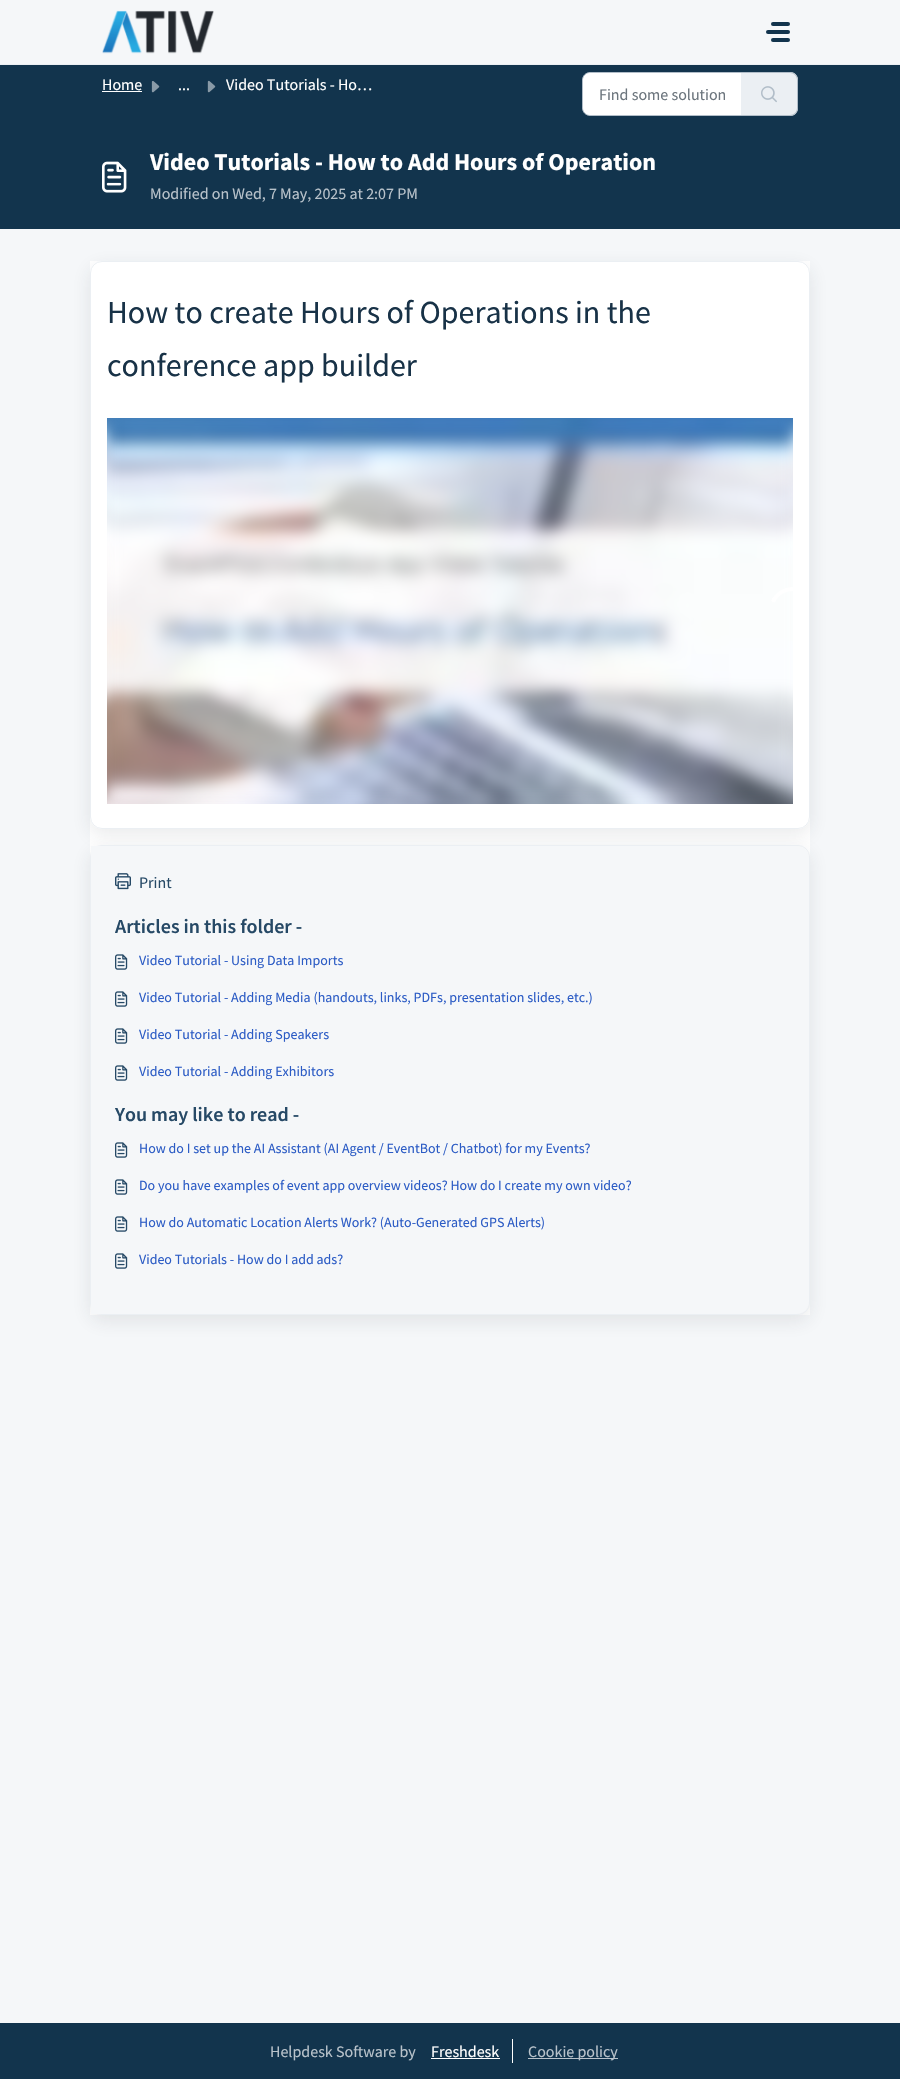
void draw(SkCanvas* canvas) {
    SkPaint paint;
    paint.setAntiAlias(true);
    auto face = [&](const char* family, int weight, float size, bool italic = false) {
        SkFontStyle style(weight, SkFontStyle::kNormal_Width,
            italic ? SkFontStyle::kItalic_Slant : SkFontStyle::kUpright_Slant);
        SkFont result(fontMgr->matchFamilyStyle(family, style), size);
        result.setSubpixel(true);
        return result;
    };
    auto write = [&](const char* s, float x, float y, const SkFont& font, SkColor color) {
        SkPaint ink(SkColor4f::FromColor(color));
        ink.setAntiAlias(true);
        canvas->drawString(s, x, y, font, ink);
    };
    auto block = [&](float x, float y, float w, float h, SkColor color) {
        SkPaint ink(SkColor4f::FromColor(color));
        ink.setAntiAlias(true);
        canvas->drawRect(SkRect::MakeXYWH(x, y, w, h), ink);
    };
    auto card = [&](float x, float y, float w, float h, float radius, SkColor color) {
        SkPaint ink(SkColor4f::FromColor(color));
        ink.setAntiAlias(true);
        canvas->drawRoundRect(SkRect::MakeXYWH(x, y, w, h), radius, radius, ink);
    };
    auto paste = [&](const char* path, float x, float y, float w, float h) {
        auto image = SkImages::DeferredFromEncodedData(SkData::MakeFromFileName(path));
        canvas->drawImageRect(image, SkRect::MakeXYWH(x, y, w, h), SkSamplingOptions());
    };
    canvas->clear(SkColorSetRGB(245, 247, 249));
    block(0, 64, 900, 1, SkColorSetRGB(235, 239, 243));
    paste("pic1.png", 102, 10, 112, 44);
    card(771, 22, 19, 4, 2, SkColorSetRGB(18, 52, 77));
    card(766, 30, 24, 4, 2, SkColorSetRGB(18, 52, 77));
    card(771, 38, 19, 4, 2, SkColorSetRGB(18, 52, 77));
    block(0, 65, 900, 164, SkColorSetRGB(18, 52, 77));
    auto kFont1 = face("Source Sans Pro", 400, 16);
    write("Home", 102, 90, kFont1, SK_ColorWHITE);
    block(102, 91, 40, 1, SK_ColorWHITE);
    paste("pic2.png", 151, 81, 9, 12);
    write("...", 178, 90, kFont1, SK_ColorWHITE);
    paste("pic3.png", 207, 80, 9, 13);
    write("Video Tutorials - Ho…", 226, 90, kFont1, SK_ColorWHITE);
    paint.setColor(SK_ColorWHITE);
    canvas->drawPath(SkPathBuilder().moveTo(590, 72.5f).lineTo(741.5f, 72.5f).lineTo(741.5f, 115.5f).lineTo(590, 115.5f).cubicTo(586, 115.5f, 582.5f, 112, 582.5f, 108).lineTo(582.5f, 80).cubicTo(582.5f, 76, 586, 72.5f, 590, 72.5f).close().detach(), paint);
    paint.setStyle(SkPaint::kStroke_Style);
    paint.setStrokeWidth(1);
    paint.setColor(SkColorSetRGB(177, 189, 200));
    canvas->drawPath(SkPathBuilder().moveTo(590, 72.5f).lineTo(741.5f, 72.5f).lineTo(741.5f, 115.5f).lineTo(590, 115.5f).cubicTo(586, 115.5f, 582.5f, 112, 582.5f, 108).lineTo(582.5f, 80).cubicTo(582.5f, 76, 586, 72.5f, 590, 72.5f).close().detach(), paint);
    canvas->save();
    canvas->clipRect(SkRect::MakeXYWH(599, 84, 126, 20));
    write("Find some solution", 599, 100, kFont1, SkColorSetRGB(108, 117, 125));
    canvas->restore();
    paint.setStyle(SkPaint::kFill_Style);
    paint.setColor(SkColorSetRGB(235, 239, 243));
    canvas->drawPath(SkPathBuilder().moveTo(741, 72).lineTo(790, 72).cubicTo(794.5f, 72, 798, 75.5f, 798, 80).lineTo(798, 108).cubicTo(798, 112.5f, 794.5f, 116, 790, 116).lineTo(741, 116).close().detach(), paint);
    paint.setColor(SkColorSetRGB(177, 189, 200));
    canvas->drawPath(SkPathBuilder(SkPathFillType::kEvenOdd).moveTo(741, 72).lineTo(790, 72).cubicTo(794, 72, 798, 76, 798, 80).lineTo(798, 108).cubicTo(798, 112, 794, 116, 790, 116).lineTo(741, 116).close().moveTo(741, 73).lineTo(790, 73).cubicTo(794, 73, 797, 76, 797, 80).lineTo(797, 108).cubicTo(797, 112, 794, 115, 790, 115).lineTo(741, 115).close().detach(), paint);
    paste("pic4.png", 761, 86, 16, 17);
    paste("pic5.png", 102, 161, 25, 32);
    auto kFont2 = face("Source Sans Pro", 700, 24);
    write("Video Tutorials - How to Add Hours of Operation", 150, 170, kFont2, SK_ColorWHITE);
    write("Modified on Wed, 7 May, 2025 at 2:07 PM", 150, 199, kFont1, SkColorSetRGB(184, 194, 202));
    block(90, 261, 720, 1054, SK_ColorWHITE);
    canvas->save();
    canvas->clipPath(SkPathBuilder(SkPathFillType::kEvenOdd).moveTo(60, 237).lineTo(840, 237).lineTo(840, 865).lineTo(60, 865).close().moveTo(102, 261).lineTo(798, 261).cubicTo(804.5f, 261, 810, 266.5f, 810, 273).lineTo(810, 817).cubicTo(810, 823.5f, 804.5f, 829, 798, 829).lineTo(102, 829).cubicTo(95.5f, 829, 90, 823.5f, 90, 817).lineTo(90, 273).cubicTo(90, 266.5f, 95.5f, 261, 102, 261).close().detach(), true);
    paint.setColor(SkColorSetARGB(26, 39, 49, 58));
    paint.setMaskFilter(SkMaskFilter::MakeBlur(kNormal_SkBlurStyle, 9.5f));
    canvas->drawRoundRect(SkRect::MakeXYWH(90, 267, 720, 568), 12, 12, paint);
    paint.setMaskFilter(nullptr);
    canvas->restore();
    paint.setStyle(SkPaint::kStroke_Style);
    paint.setColor(SkColorSetRGB(235, 239, 243));
    canvas->drawRoundRect(SkRect::MakeXYWH(90.5f, 261.5f, 719, 567), 11.5f, 11.5f, paint);
    auto kFont3 = face("Source Sans Pro", 400, 32);
    write("How to create Hours of Operations in the", 107, 323, kFont3, SkColorSetRGB(24, 50, 71));
    write("conference app builder", 107, 376, kFont3, SkColorSetRGB(24, 50, 71));
    paste("pic6.png", 107, 418, 686, 386);
    paint.setStyle(SkPaint::kFill_Style);
    paint.setColor(SkColorSetARGB(26, 39, 49, 58));
    paint.setMaskFilter(SkMaskFilter::MakeBlur(kNormal_SkBlurStyle, 9.5f));
    canvas->drawRoundRect(SkRect::MakeXYWH(90, 851, 720, 470), 12, 12, paint);
    paint.setMaskFilter(nullptr);
    paint.setStyle(SkPaint::kStroke_Style);
    paint.setColor(SkColorSetRGB(235, 239, 243));
    canvas->drawRoundRect(SkRect::MakeXYWH(90.5f, 845.5f, 719, 469), 11.5f, 11.5f, paint);
    paint.setStyle(SkPaint::kFill_Style);
    paint.setColor(SkColorSetRGB(245, 247, 249));
    canvas->drawPath(SkPathBuilder().moveTo(91, 846).lineTo(797, 846).cubicTo(803.5f, 846, 809, 851.5f, 809, 858).lineTo(809, 1302).cubicTo(809, 1308.5f, 803.5f, 1314, 797, 1314).lineTo(91, 1314).close().detach(), paint);
    paste("pic7.png", 115, 873, 16, 17);
    write("Print", 139, 888, kFont1, SkColorSetRGB(38, 73, 102));
    auto kFont4 = face("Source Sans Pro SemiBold", 600, 20);
    write("Articles in this folder -", 115, 933, kFont4, SkColorSetRGB(38, 73, 102));
    paste("pic8.png", 115, 954, 13, 16);
    auto kFont5 = face("Source Sans Pro", 400, 14);
    write("Video Tutorial - Using Data Imports", 139, 965, kFont5, SkColorSetRGB(44, 92, 197));
    paste("pic8.png", 115, 991, 13, 16);
    write("Video Tutorial - Adding Media (handouts, links, PDFs, presentation slides, etc.)", 139, 1002, kFont5, SkColorSetRGB(44, 92, 197));
    paste("pic8.png", 115, 1028, 13, 16);
    write("Video Tutorial - Adding Speakers", 139, 1039, kFont5, SkColorSetRGB(44, 92, 197));
    paste("pic8.png", 115, 1065, 13, 16);
    write("Video Tutorial - Adding Exhibitors", 139, 1076, kFont5, SkColorSetRGB(44, 92, 197));
    write("You may like to read -", 115, 1121, kFont4, SkColorSetRGB(38, 73, 102));
    paste("pic8.png", 115, 1142, 13, 16);
    write("How do I set up the AI Assistant (AI Agent / EventBot / Chatbot) for my Events?", 139, 1153, kFont5, SkColorSetRGB(44, 92, 197));
    paste("pic8.png", 115, 1179, 13, 16);
    write("Do you have examples of event app overview videos? How do I create my own video?", 139, 1190, kFont5, SkColorSetRGB(44, 92, 197));
    paste("pic8.png", 115, 1216, 13, 16);
    write("How do Automatic Location Alerts Work? (Auto-Generated GPS Alerts)", 139, 1227, kFont5, SkColorSetRGB(44, 92, 197));
    paste("pic8.png", 115, 1253, 13, 16);
    write("Video Tutorials - How do I add ads?", 139, 1264, kFont5, SkColorSetRGB(44, 92, 197));
    block(0, 2023, 900, 56, SkColorSetRGB(18, 52, 77));
    write("Helpdesk Software by", 270, 2057, kFont1, SkColorSetRGB(184, 194, 202));
    block(512, 2039, 1, 24, SK_ColorWHITE);
    write("Freshdesk", 431, 2057, kFont1, SK_ColorWHITE);
    block(431, 2058, 69, 1, SK_ColorWHITE);
    block(528, 2058, 90, 1, SkColorSetRGB(184, 194, 202));
    write("Cookie policy", 528, 2057, kFont1, SkColorSetRGB(184, 194, 202));
}
